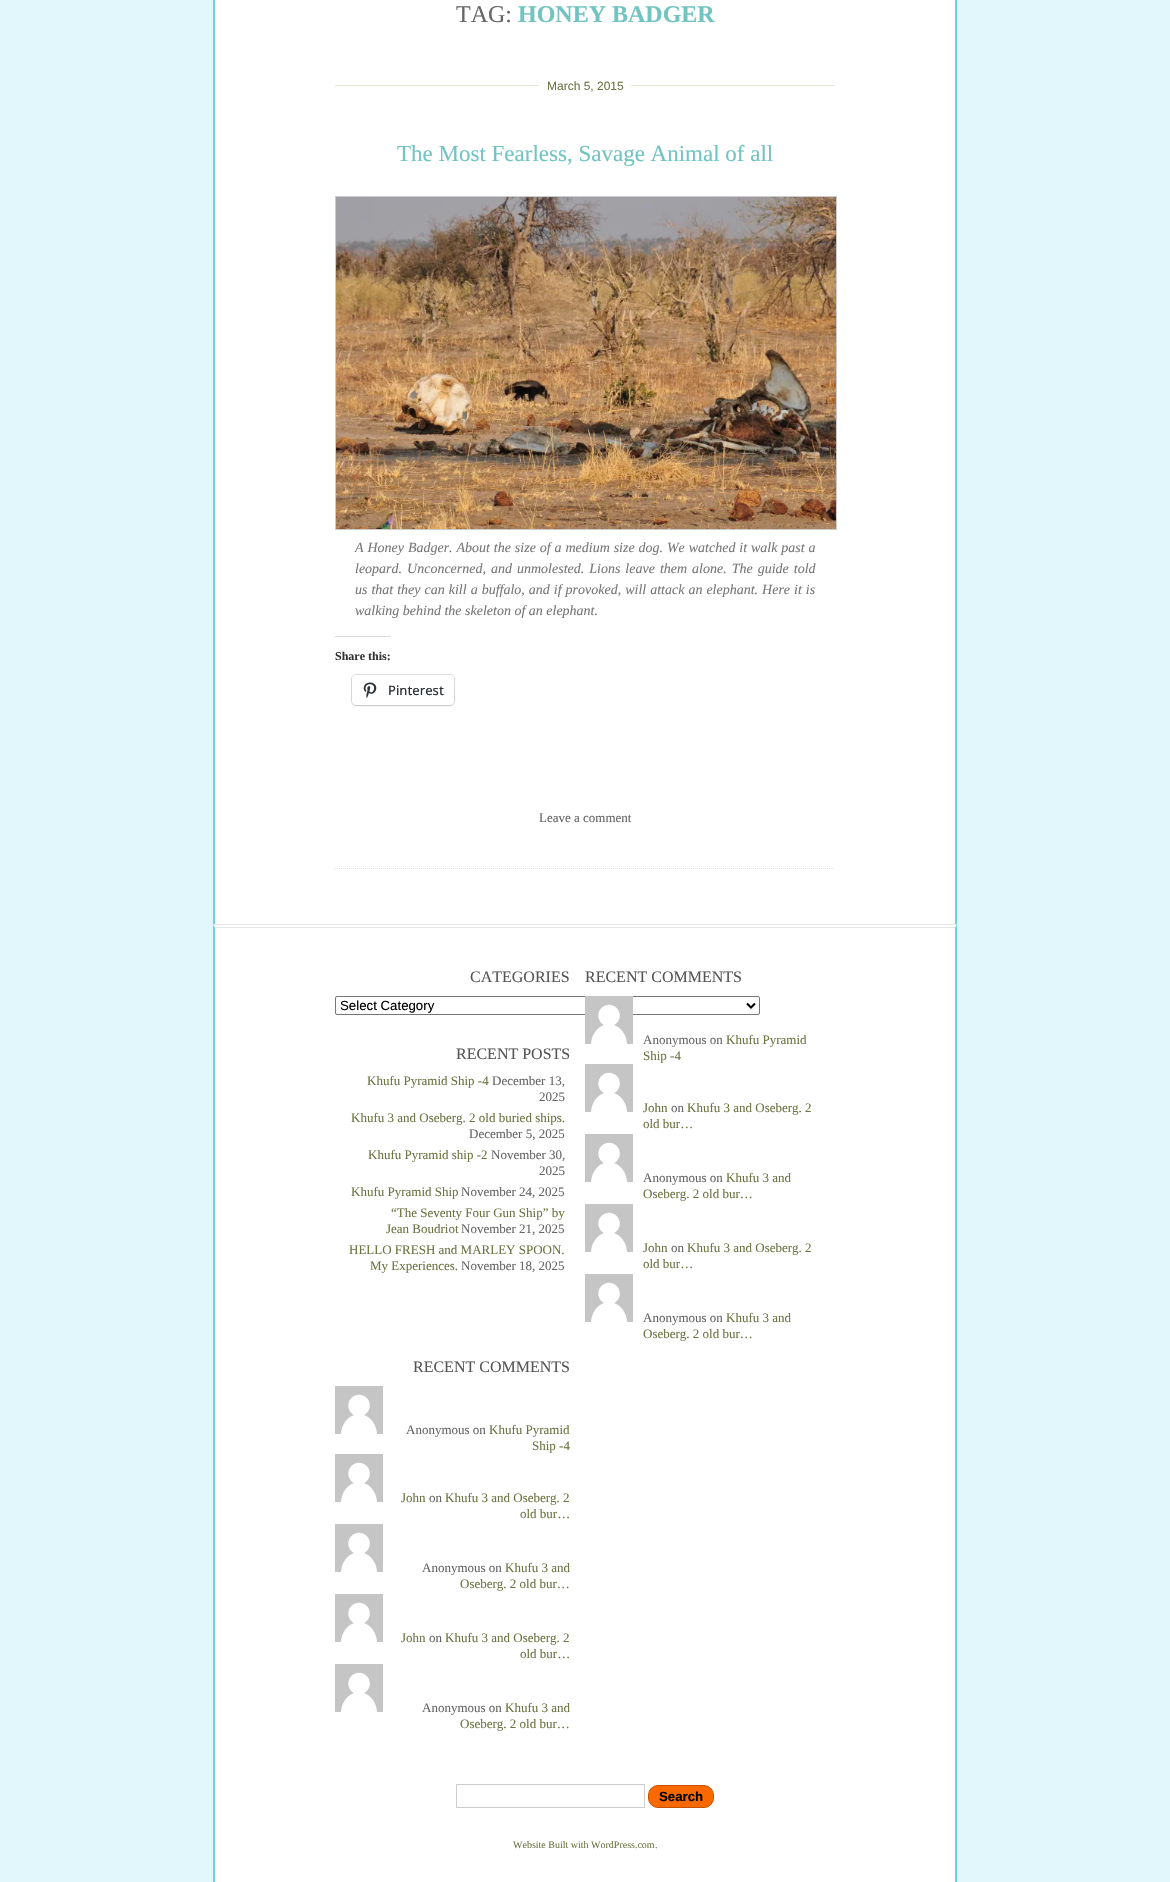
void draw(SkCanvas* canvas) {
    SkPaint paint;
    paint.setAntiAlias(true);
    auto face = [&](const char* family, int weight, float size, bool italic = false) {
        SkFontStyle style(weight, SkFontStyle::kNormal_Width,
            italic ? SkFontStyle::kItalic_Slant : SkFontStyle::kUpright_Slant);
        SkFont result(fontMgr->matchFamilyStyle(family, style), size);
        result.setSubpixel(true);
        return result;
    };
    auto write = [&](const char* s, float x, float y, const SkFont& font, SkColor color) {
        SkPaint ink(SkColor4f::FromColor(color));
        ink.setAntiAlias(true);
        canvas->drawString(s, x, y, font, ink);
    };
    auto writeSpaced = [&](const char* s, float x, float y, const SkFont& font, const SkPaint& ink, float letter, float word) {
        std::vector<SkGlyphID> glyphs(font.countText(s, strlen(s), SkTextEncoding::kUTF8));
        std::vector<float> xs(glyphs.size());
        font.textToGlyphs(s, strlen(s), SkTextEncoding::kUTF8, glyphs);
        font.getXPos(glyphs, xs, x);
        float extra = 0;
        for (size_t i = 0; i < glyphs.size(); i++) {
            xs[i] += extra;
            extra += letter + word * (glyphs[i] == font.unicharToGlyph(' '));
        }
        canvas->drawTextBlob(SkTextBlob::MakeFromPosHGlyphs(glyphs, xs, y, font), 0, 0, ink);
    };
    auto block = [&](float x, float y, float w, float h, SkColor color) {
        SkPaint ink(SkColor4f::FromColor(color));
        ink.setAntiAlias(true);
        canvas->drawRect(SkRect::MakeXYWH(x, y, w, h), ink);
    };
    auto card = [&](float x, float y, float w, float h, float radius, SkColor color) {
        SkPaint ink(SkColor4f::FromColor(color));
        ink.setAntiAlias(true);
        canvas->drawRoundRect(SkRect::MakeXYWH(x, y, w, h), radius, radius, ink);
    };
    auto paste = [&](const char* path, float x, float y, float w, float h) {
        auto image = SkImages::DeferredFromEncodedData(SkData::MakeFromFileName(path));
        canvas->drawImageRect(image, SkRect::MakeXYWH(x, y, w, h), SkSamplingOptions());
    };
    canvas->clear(SkColorSetRGB(226, 247, 251));
    block(215, 0, 740, 924, SK_ColorWHITE);
    block(955, 0, 2, 924, SkColorSetRGB(105, 210, 231));
    block(213, 0, 2, 924, SkColorSetRGB(105, 210, 231));
    auto kFont1 = face("Liberation Serif", 400, 24);
    write("TAG:", 456, 22, kFont1, SkColorSetRGB(102, 102, 102));
    auto kFont2 = face("Liberation Serif", 700, 24);
    write("HONEY BADGER", 518, 22, kFont2, SkColorSetRGB(114, 196, 193));
    paint.setStyle(SkPaint::kStroke_Style);
    paint.setStrokeWidth(1);
    paint.setColor(SkColorSetRGB(221, 221, 221));
    paint.setPathEffect(SkDashPathEffect::Make({{1, 1}}, 0));
    canvas->drawPath(SkPathBuilder().moveTo(335, 868.5f).lineTo(835, 868.5f).detach(), paint);
    paint.setPathEffect(nullptr);
    block(335, 85, 500, 1, SkColorSetRGB(230, 233, 214));
    block(539, 85, 92, 1, SK_ColorWHITE);
    auto kFont3 = face("Liberation Sans", 400, 12);
    write("March 5, 2015", 547, 90, kFont3, SkColorSetRGB(110, 115, 67));
    auto kFont4 = face("Liberation Serif", 400, 23);
    write("The Most Fearless, Savage Animal of all", 397, 161, kFont4, SkColorSetRGB(114, 196, 193));
    paint.setColor(SkColorSetRGB(204, 204, 204));
    canvas->drawRect(SkRect::MakeXYWH(335.5f, 196.5f, 501, 333), paint);
    paste("pic1.png", 336, 197, 500, 332);
    auto kFont5 = face("Liberation Serif", 400, 14, true);
    paint.setStyle(SkPaint::kFill_Style);
    paint.setColor(SkColorSetRGB(119, 119, 119));
    writeSpaced("A Honey Badger. About the size of a medium size dog. We watched it walk past a", 355, 552, kFont5, paint, 0, 0.4f);
    writeSpaced("leopard. Unconcerned, and unmolested. Lions leave them alone. The guide told", 355, 573, kFont5, paint, 0, 1.5f);
    writeSpaced("us that they can kill a buffalo, and if provoked, will attack an elephant. Here it is", 355, 594, kFont5, paint, 0, 0.5f);
    write("walking behind the skeleton of an elephant.", 355, 615, kFont5, SkColorSetRGB(119, 119, 119));
    block(335, 636, 56, 1, SkColorSetRGB(220, 220, 222));
    auto kFont6 = face("Liberation Serif", 700, 12);
    write("Share this:", 335, 660, kFont6, SkColorSetRGB(51, 51, 51));
    paint.setStyle(SkPaint::kStroke_Style);
    paint.setColor(SkColorSetRGB(224, 224, 224));
    canvas->drawRoundRect(SkRect::MakeXYWH(351.5f, 674.5f, 103, 31), 4.5f, 4.5f, paint);
    paint.setStyle(SkPaint::kFill_Style);
    paint.setColor(SkColorSetARGB(31, 0, 0, 0));
    paint.setMaskFilter(SkMaskFilter::MakeBlur(kNormal_SkBlurStyle, 1));
    canvas->drawRoundRect(SkRect::MakeXYWH(352, 676, 102, 30), 4, 4, paint);
    paint.setMaskFilter(nullptr);
    card(352, 675, 102, 30, 4, SK_ColorWHITE);
    paste("pic2.png", 363, 682, 14, 16);
    auto kFont7 = face("Open Sans", 500, 13);
    write("Pinterest", 388, 695, kFont7, SkColorSetRGB(44, 51, 56));
    auto kFont8 = face("Liberation Serif", 400, 13);
    write("Leave a comment", 539, 822, kFont8, SkColorSetRGB(102, 102, 102));
    block(213, 925, 744, 957, SK_ColorWHITE);
    block(213, 924, 744, 1, SkColorSetRGB(230, 230, 230));
    block(213, 927, 744, 1, SkColorSetRGB(230, 230, 230));
    paint.setColor(SkColorSetRGB(105, 210, 231));
    canvas->drawPath(SkPathBuilder().moveTo(957, 924).lineTo(957, 1882).lineTo(955, 1882).lineTo(955, 928).close().detach(), paint);
    canvas->drawPath(SkPathBuilder().moveTo(213, 1882).lineTo(213, 924).lineTo(215, 928).lineTo(215, 1882).close().detach(), paint);
    auto kFont9 = face("Liberation Serif", 400, 16);
    write("CATEGORIES", 470, 982, kFont9, SkColorSetRGB(85, 85, 85));
    paint.setStyle(SkPaint::kStroke_Style);
    paint.setColor(SkColorSetRGB(118, 118, 118));
    canvas->drawRoundRect(SkRect::MakeXYWH(335.5f, 996.5f, 424, 18), 1.5f, 1.5f, paint);
    paint.setStrokeWidth(2);
    paint.setColor(SK_ColorBLACK);
    canvas->drawPath(SkPathBuilder().moveTo(747, 1003.5f).lineTo(751, 1007.5f).lineTo(755, 1003.5f).detach(), paint);
    auto kFont10 = face("Liberation Sans", 400, 13.25f);
    write("Select Category", 340, 1010, kFont10, SK_ColorBLACK);
    write("RECENT POSTS", 456, 1059, kFont9, SkColorSetRGB(85, 85, 85));
    write("Khufu Pyramid Ship -4", 367, 1085, kFont8, SkColorSetRGB(110, 115, 67));
    write("December 13,", 492, 1085, kFont8, SkColorSetRGB(102, 102, 102));
    write("2025", 539, 1101, kFont8, SkColorSetRGB(102, 102, 102));
    write("Khufu 3 and Oseberg. 2 old buried ships.", 351, 1122, kFont8, SkColorSetRGB(110, 115, 67));
    write("December 5, 2025", 469, 1138, kFont8, SkColorSetRGB(102, 102, 102));
    write("Khufu Pyramid ship -2", 368, 1159, kFont8, SkColorSetRGB(110, 115, 67));
    write("November 30,", 491, 1159, kFont8, SkColorSetRGB(102, 102, 102));
    write("2025", 539, 1175, kFont8, SkColorSetRGB(102, 102, 102));
    write("Khufu Pyramid Ship", 351, 1196, kFont8, SkColorSetRGB(110, 115, 67));
    write("November 24, 2025", 461, 1196, kFont8, SkColorSetRGB(102, 102, 102));
    write("“The Seventy Four Gun Ship” by", 391, 1217, kFont8, SkColorSetRGB(110, 115, 67));
    write("Jean Boudriot", 386, 1233, kFont8, SkColorSetRGB(110, 115, 67));
    write("November 21, 2025", 461, 1233, kFont8, SkColorSetRGB(102, 102, 102));
    write("HELLO FRESH and MARLEY SPOON.", 349, 1254, kFont8, SkColorSetRGB(110, 115, 67));
    write("My Experiences.", 370, 1270, kFont8, SkColorSetRGB(110, 115, 67));
    write("November 18, 2025", 461, 1270, kFont8, SkColorSetRGB(102, 102, 102));
    write("RECENT COMMENTS", 413, 1372, kFont9, SkColorSetRGB(85, 85, 85));
    paste("pic3.png", 335, 1386, 48, 48);
    write("Anonymous on", 406, 1434, kFont8, SkColorSetRGB(102, 102, 102));
    write("Khufu Pyramid", 489, 1434, kFont8, SkColorSetRGB(110, 115, 67));
    write("Ship -4", 532, 1450, kFont8, SkColorSetRGB(110, 115, 67));
    paste("pic3.png", 335, 1454, 48, 48);
    write("John", 401, 1502, kFont8, SkColorSetRGB(110, 115, 67));
    write("on", 429, 1502, kFont8, SkColorSetRGB(102, 102, 102));
    write("Khufu 3 and Oseberg. 2", 445, 1502, kFont8, SkColorSetRGB(110, 115, 67));
    write("old bur…", 520, 1518, kFont8, SkColorSetRGB(110, 115, 67));
    paste("pic3.png", 335, 1524, 48, 48);
    write("Anonymous on", 422, 1572, kFont8, SkColorSetRGB(102, 102, 102));
    write("Khufu 3 and", 505, 1572, kFont8, SkColorSetRGB(110, 115, 67));
    write("Oseberg. 2 old bur…", 460, 1588, kFont8, SkColorSetRGB(110, 115, 67));
    paste("pic3.png", 335, 1594, 48, 48);
    write("John", 401, 1642, kFont8, SkColorSetRGB(110, 115, 67));
    write("on", 429, 1642, kFont8, SkColorSetRGB(102, 102, 102));
    write("Khufu 3 and Oseberg. 2", 445, 1642, kFont8, SkColorSetRGB(110, 115, 67));
    write("old bur…", 520, 1658, kFont8, SkColorSetRGB(110, 115, 67));
    paste("pic3.png", 335, 1664, 48, 48);
    write("Anonymous on", 422, 1712, kFont8, SkColorSetRGB(102, 102, 102));
    write("Khufu 3 and", 505, 1712, kFont8, SkColorSetRGB(110, 115, 67));
    write("Oseberg. 2 old bur…", 460, 1728, kFont8, SkColorSetRGB(110, 115, 67));
    write("RECENT COMMENTS", 585, 982, kFont9, SkColorSetRGB(85, 85, 85));
    paste("pic3.png", 585, 996, 48, 48);
    write("Anonymous on", 643, 1044, kFont8, SkColorSetRGB(102, 102, 102));
    write("Khufu Pyramid", 726, 1044, kFont8, SkColorSetRGB(110, 115, 67));
    write("Ship -4", 643, 1060, kFont8, SkColorSetRGB(110, 115, 67));
    paste("pic3.png", 585, 1064, 48, 48);
    write("John", 643, 1112, kFont8, SkColorSetRGB(110, 115, 67));
    write("on", 671, 1112, kFont8, SkColorSetRGB(102, 102, 102));
    write("Khufu 3 and Oseberg. 2", 687, 1112, kFont8, SkColorSetRGB(110, 115, 67));
    write("old bur…", 643, 1128, kFont8, SkColorSetRGB(110, 115, 67));
    paste("pic3.png", 585, 1134, 48, 48);
    write("Anonymous on", 643, 1182, kFont8, SkColorSetRGB(102, 102, 102));
    write("Khufu 3 and", 726, 1182, kFont8, SkColorSetRGB(110, 115, 67));
    write("Oseberg. 2 old bur…", 643, 1198, kFont8, SkColorSetRGB(110, 115, 67));
    paste("pic3.png", 585, 1204, 48, 48);
    write("John", 643, 1252, kFont8, SkColorSetRGB(110, 115, 67));
    write("on", 671, 1252, kFont8, SkColorSetRGB(102, 102, 102));
    write("Khufu 3 and Oseberg. 2", 687, 1252, kFont8, SkColorSetRGB(110, 115, 67));
    write("old bur…", 643, 1268, kFont8, SkColorSetRGB(110, 115, 67));
    paste("pic3.png", 585, 1274, 48, 48);
    write("Anonymous on", 643, 1322, kFont8, SkColorSetRGB(102, 102, 102));
    write("Khufu 3 and", 726, 1322, kFont8, SkColorSetRGB(110, 115, 67));
    write("Oseberg. 2 old bur…", 643, 1338, kFont8, SkColorSetRGB(110, 115, 67));
    paint.setStrokeWidth(1);
    paint.setColor(SkColorSetRGB(204, 204, 204));
    canvas->drawRect(SkRect::MakeXYWH(456.5f, 1784.5f, 188, 23), paint);
    paint.setStyle(SkPaint::kFill_Style);
    paint.setColor(SkColorSetRGB(250, 105, 0));
    canvas->drawRoundRect(SkRect::MakeXYWH(648.5f, 1785.5f, 65, 22), 9.5f, 9.5f, paint);
    paint.setStyle(SkPaint::kStroke_Style);
    paint.setColor(SkColorSetRGB(198, 82, 0));
    canvas->drawRoundRect(SkRect::MakeXYWH(648.5f, 1785.5f, 65, 22), 9.5f, 9.5f, paint);
    auto kFont11 = face("Liberation Sans", 700, 13.25f);
    write("Search", 659, 1801, kFont11, SK_ColorBLACK);
    auto kFont12 = face("Liberation Serif", 400, 10);
    write("Website Built with WordPress.com", 513, 1848, kFont12, SkColorSetRGB(110, 115, 67));
    write(".", 655, 1848, kFont12, SkColorSetRGB(102, 102, 102));
}
